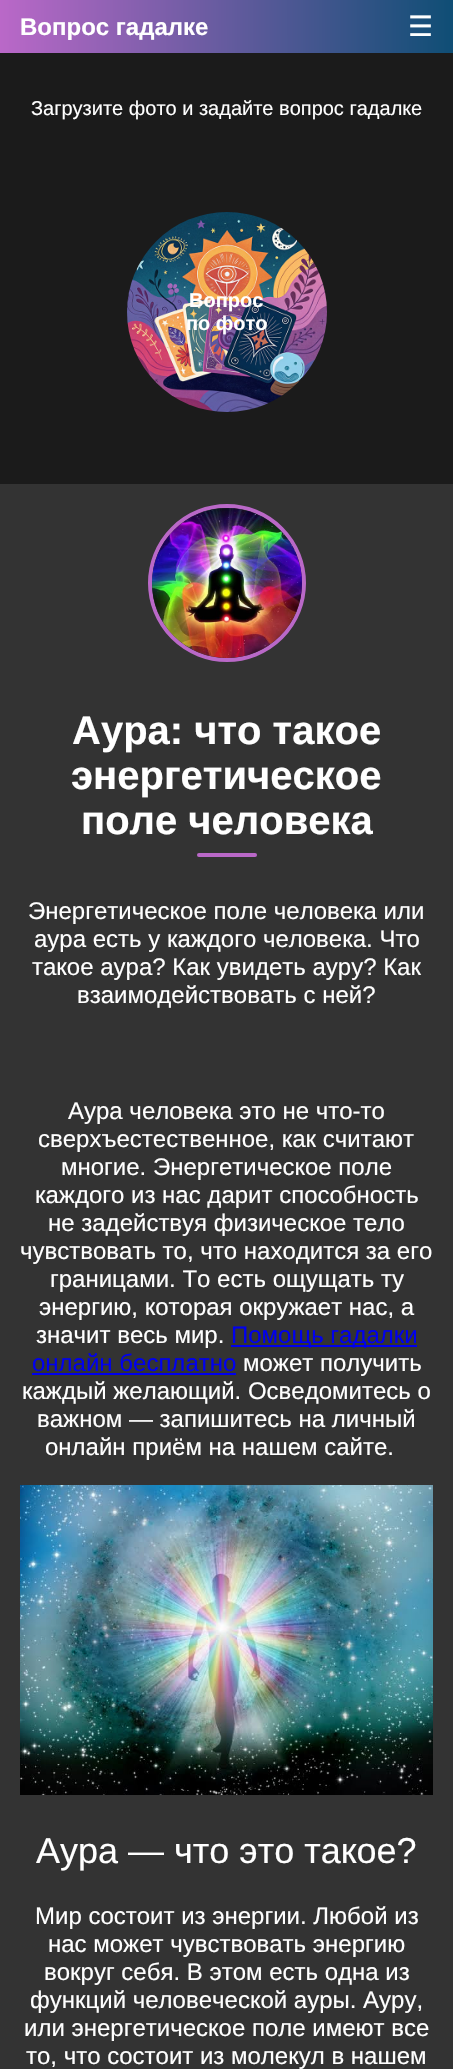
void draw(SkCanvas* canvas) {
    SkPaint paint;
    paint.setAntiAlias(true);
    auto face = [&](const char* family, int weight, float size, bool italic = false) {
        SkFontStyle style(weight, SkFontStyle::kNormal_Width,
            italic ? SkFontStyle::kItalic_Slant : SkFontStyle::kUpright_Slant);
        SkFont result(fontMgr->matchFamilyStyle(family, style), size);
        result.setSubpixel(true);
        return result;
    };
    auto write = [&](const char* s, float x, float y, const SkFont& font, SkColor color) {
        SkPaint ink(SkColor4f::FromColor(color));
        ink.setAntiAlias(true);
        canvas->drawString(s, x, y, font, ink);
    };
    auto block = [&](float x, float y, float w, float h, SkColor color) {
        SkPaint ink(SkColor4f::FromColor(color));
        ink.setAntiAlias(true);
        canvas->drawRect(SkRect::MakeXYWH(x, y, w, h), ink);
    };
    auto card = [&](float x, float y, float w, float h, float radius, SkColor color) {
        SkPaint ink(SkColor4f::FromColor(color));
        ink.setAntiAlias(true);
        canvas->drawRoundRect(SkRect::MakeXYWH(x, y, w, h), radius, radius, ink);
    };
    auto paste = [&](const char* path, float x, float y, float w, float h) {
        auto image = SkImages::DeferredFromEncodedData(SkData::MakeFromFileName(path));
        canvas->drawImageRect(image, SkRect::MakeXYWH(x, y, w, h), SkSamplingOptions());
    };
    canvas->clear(SkColorSetRGB(27, 27, 27));
    {
        const SkColor colors[] = {SkColorSetRGB(186, 104, 200), SkColorSetRGB(15, 78, 117)};
        const float stops[] = {0, 1};
        const SkPoint ends[] = {{0, 27}, {453, 26}};
        paint.setShader(SkGradientShader::MakeLinear(ends, colors, stops, 2, SkTileMode::kClamp));
        paint.setAlpha(255);
    }
    canvas->drawRect(SkRect::MakeXYWH(0, 0, 453, 53), paint);
    auto kFont1 = face("Liberation Sans", 700, 24);
    write("Вопрос гадалке", 20, 35, kFont1, SK_ColorWHITE);
    auto kFont2 = face("DejaVu Sans", 400, 28);
    write("☰", 408, 36, kFont2, SK_ColorWHITE);
    auto kFont3 = face("Liberation Sans", 400, 20);
    write("Загрузите фото и задайте вопрос гадалке", 31, 115, kFont3, SK_ColorWHITE);
    paste("pic1.png", 127, 212, 200, 200);
    auto kFont4 = face("Liberation Sans", 700, 20);
    write("Вопрос", 189, 307, kFont4, SK_ColorWHITE);
    write("по фото", 186, 330, kFont4, SK_ColorWHITE);
    block(0, 484, 453, 1585, SkColorSetRGB(51, 51, 51));
    paint.setStyle(SkPaint::kStroke_Style);
    paint.setStrokeWidth(4);
    paint.setShader(nullptr);
    paint.setColor(SkColorSetRGB(186, 104, 200));
    canvas->drawCircle(227, 583, 77, paint);
    paste("pic2.png", 152, 508, 150, 150);
    auto kFont5 = face("Liberation Sans", 700, 40);
    write("Аура: что такое", 72, 744, kFont5, SK_ColorWHITE);
    write("энергетическое", 71, 789, kFont5, SK_ColorWHITE);
    write("поле человека", 81, 834, kFont5, SK_ColorWHITE);
    card(197, 853, 60, 4, 2, SkColorSetRGB(186, 104, 200));
    auto kFont6 = face("Liberation Sans", 400, 24);
    write("Энергетическое поле человека или", 28, 919, kFont6, SK_ColorWHITE);
    write("аура есть у каждого человека. Что", 34, 947, kFont6, SK_ColorWHITE);
    write("такое аура? Как увидеть ауру? Как", 32, 975, kFont6, SK_ColorWHITE);
    write("взаимодействовать с ней?", 77, 1003, kFont6, SK_ColorWHITE);
    write("Аура человека это не что-то", 68, 1119, kFont6, SK_ColorWHITE);
    write("сверхъестественное, как считают", 38, 1147, kFont6, SK_ColorWHITE);
    write("многие. Энергетическое поле", 61, 1175, kFont6, SK_ColorWHITE);
    write("каждого из нас дарит способность", 35, 1203, kFont6, SK_ColorWHITE);
    write("не задействуя физическое тело", 48, 1231, kFont6, SK_ColorWHITE);
    write("чувствовать то, что находится за его", 20, 1259, kFont6, SK_ColorWHITE);
    write("границами. То есть ощущать ту", 50, 1287, kFont6, SK_ColorWHITE);
    write("энергию, которая окружает нас, а", 39, 1315, kFont6, SK_ColorWHITE);
    write("значит весь мир.", 36, 1343, kFont6, SK_ColorWHITE);
    block(231, 1345, 186, 2, SkColorSetRGB(0, 0, 238));
    write("Помощь гадалки", 231, 1343, kFont6, SkColorSetRGB(0, 0, 238));
    write("онлайн бесплатно", 32, 1371, kFont6, SkColorSetRGB(0, 0, 238));
    write("может получить", 243, 1371, kFont6, SK_ColorWHITE);
    block(32, 1373, 204, 2, SkColorSetRGB(0, 0, 238));
    write("каждый желающий. Осведомитесь о", 22, 1399, kFont6, SK_ColorWHITE);
    write("важном — запишитесь на личный", 37, 1427, kFont6, SK_ColorWHITE);
    write("онлайн приём на нашем сайте.", 45, 1455, kFont6, SK_ColorWHITE);
    paste("pic3.png", 20, 1485, 413, 310);
    auto kFont7 = face("Liberation Sans", 400, 36);
    write("Аура — что это такое?", 36, 1863, kFont7, SK_ColorWHITE);
    write("Мир состоит из энергии. Любой из", 35, 1924, kFont6, SK_ColorWHITE);
    write("нас может чувствовать энергию", 48, 1952, kFont6, SK_ColorWHITE);
    write("вокруг себя. В этом есть одна из", 44, 1980, kFont6, SK_ColorWHITE);
    write("функций человеческой ауры. Ауру,", 30, 2008, kFont6, SK_ColorWHITE);
    write("или энергетическое поле имеют все", 24, 2036, kFont6, SK_ColorWHITE);
    write("то, что состоит из молекул в нашем", 26, 2064, kFont6, SK_ColorWHITE);
}
